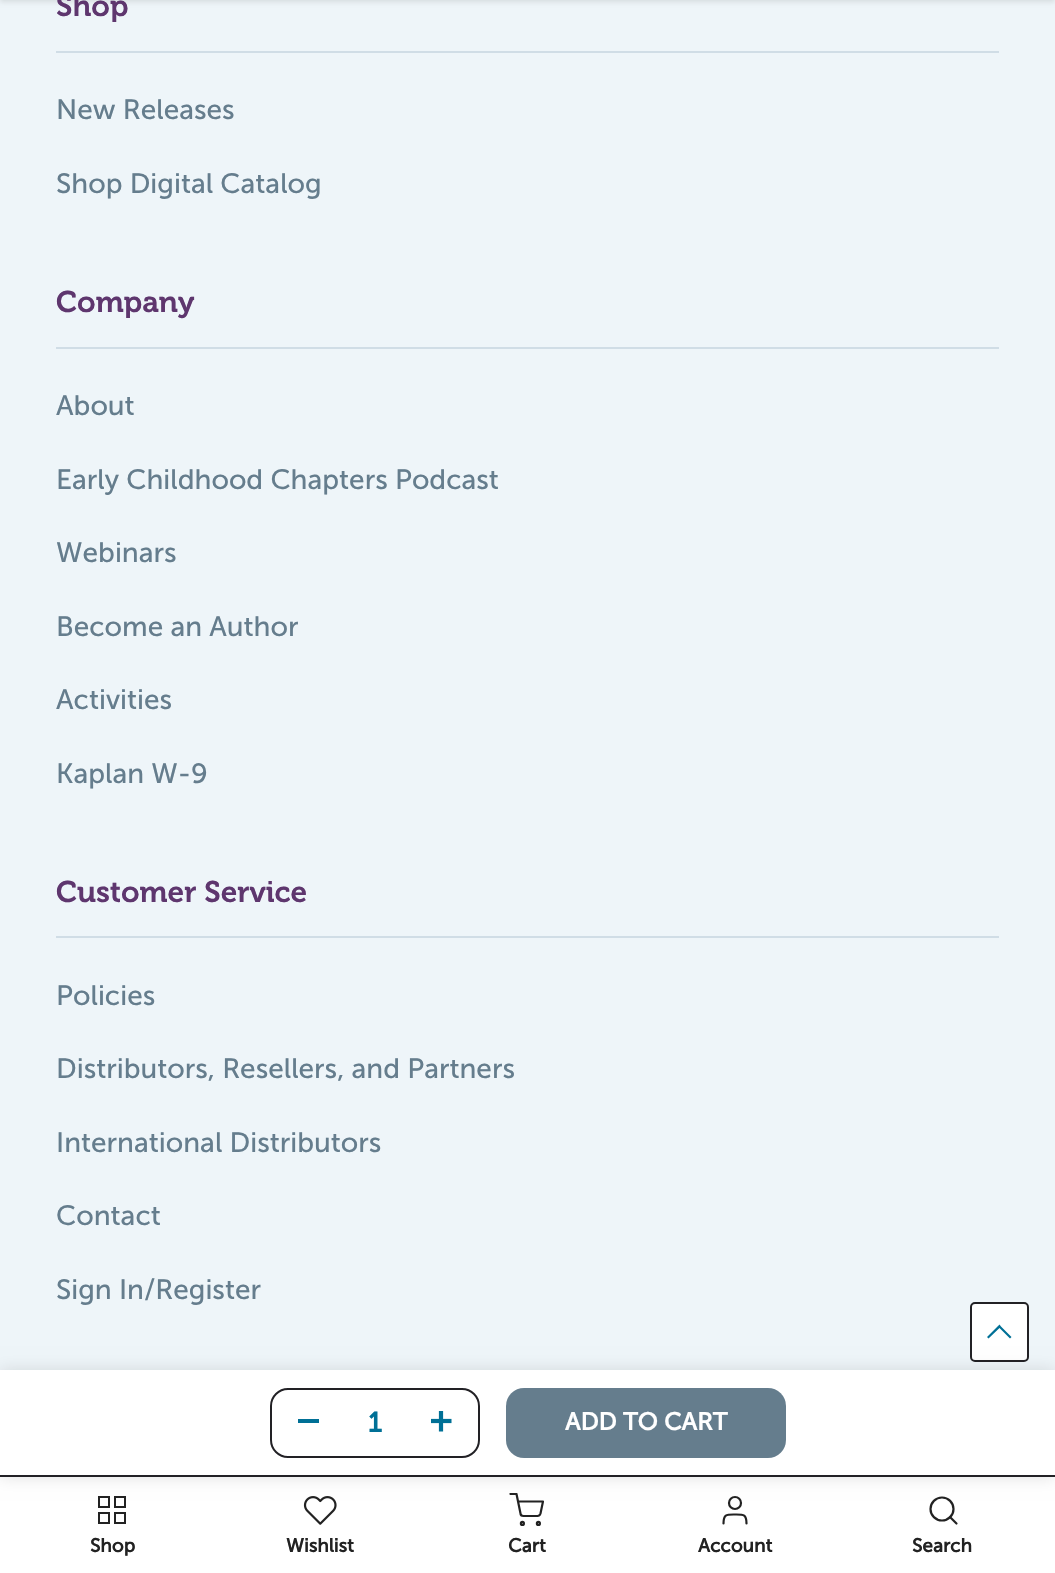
void draw(SkCanvas* canvas) {
    SkPaint paint;
    paint.setAntiAlias(true);
    auto face = [&](const char* family, int weight, float size, bool italic = false) {
        SkFontStyle style(weight, SkFontStyle::kNormal_Width,
            italic ? SkFontStyle::kItalic_Slant : SkFontStyle::kUpright_Slant);
        SkFont result(fontMgr->matchFamilyStyle(family, style), size);
        result.setSubpixel(true);
        return result;
    };
    auto write = [&](const char* s, float x, float y, const SkFont& font, SkColor color) {
        SkPaint ink(SkColor4f::FromColor(color));
        ink.setAntiAlias(true);
        canvas->drawString(s, x, y, font, ink);
    };
    auto block = [&](float x, float y, float w, float h, SkColor color) {
        SkPaint ink(SkColor4f::FromColor(color));
        ink.setAntiAlias(true);
        canvas->drawRect(SkRect::MakeXYWH(x, y, w, h), ink);
    };
    auto card = [&](float x, float y, float w, float h, float radius, SkColor color) {
        SkPaint ink(SkColor4f::FromColor(color));
        ink.setAntiAlias(true);
        canvas->drawRoundRect(SkRect::MakeXYWH(x, y, w, h), radius, radius, ink);
    };
    auto paste = [&](const char* path, float x, float y, float w, float h) {
        auto image = SkImages::DeferredFromEncodedData(SkData::MakeFromFileName(path));
        canvas->drawImageRect(image, SkRect::MakeXYWH(x, y, w, h), SkSamplingOptions());
    };
    canvas->clear(SkColorSetRGB(238, 245, 249));
    paint.setColor(SkColorSetARGB(26, 0, 0, 0));
    paint.setMaskFilter(SkMaskFilter::MakeBlur(kNormal_SkBlurStyle, 2.5f));
    canvas->drawRect(SkRect::MakeXYWH(0, -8, 1055, 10), paint);
    paint.setMaskFilter(nullptr);
    block(56, 51, 943, 2, SkColorSetRGB(208, 221, 230));
    auto kFont1 = face("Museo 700", 600, 29.75f);
    write("Shop", 56, 16, kFont1, SkColorSetRGB(94, 54, 110));
    auto kFont2 = face("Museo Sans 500", 400, 28);
    write("New Releases", 56, 119, kFont2, SkColorSetRGB(101, 125, 141));
    write("Shop Digital Catalog", 56, 193, kFont2, SkColorSetRGB(101, 125, 141));
    block(56, 347, 943, 2, SkColorSetRGB(208, 221, 230));
    write("Company", 56, 312, kFont1, SkColorSetRGB(94, 54, 110));
    write("About", 56, 415, kFont2, SkColorSetRGB(101, 125, 141));
    write("Early Childhood Chapters Podcast", 56, 489, kFont2, SkColorSetRGB(101, 125, 141));
    write("Webinars", 56, 562, kFont2, SkColorSetRGB(101, 125, 141));
    write("Become an Author", 56, 636, kFont2, SkColorSetRGB(101, 125, 141));
    write("Activities", 56, 709, kFont2, SkColorSetRGB(101, 125, 141));
    write("Kaplan W-9", 56, 783, kFont2, SkColorSetRGB(101, 125, 141));
    block(56, 936, 943, 2, SkColorSetRGB(208, 221, 230));
    write("Customer Service", 56, 902, kFont1, SkColorSetRGB(94, 54, 110));
    write("Policies", 56, 1005, kFont2, SkColorSetRGB(101, 125, 141));
    write("Distributors, Resellers, and Partners", 56, 1078, kFont2, SkColorSetRGB(101, 125, 141));
    write("International Distributors", 56, 1152, kFont2, SkColorSetRGB(101, 125, 141));
    write("Contact", 56, 1225, kFont2, SkColorSetRGB(101, 125, 141));
    write("Sign In/Register", 56, 1299, kFont2, SkColorSetRGB(101, 125, 141));
    paint.setColor(SK_ColorWHITE);
    canvas->drawRoundRect(SkRect::MakeXYWH(971, 1303, 57, 58), 4, 4, paint);
    paint.setStyle(SkPaint::kStroke_Style);
    paint.setStrokeWidth(2);
    paint.setColor(SkColorSetRGB(34, 33, 37));
    canvas->drawRoundRect(SkRect::MakeXYWH(971, 1303, 57, 58), 4, 4, paint);
    paint.setStyle(SkPaint::kFill_Style);
    paint.setColor(SkColorSetRGB(0, 112, 150));
    canvas->drawPath(SkPathBuilder().moveTo(1001, 1326.5f).lineTo(999.5f, 1324.5f).lineTo(987, 1337).lineTo(988.5f, 1338.5f).lineTo(999.5f, 1328).lineTo(1010, 1338.5f).lineTo(1011.5f, 1337).lineTo(1005.5f, 1331).close().detach(), paint);
    block(0, 1477, 1055, 96, SK_ColorWHITE);
    paint.setStyle(SkPaint::kStroke_Style);
    paint.setColor(SkColorSetRGB(34, 34, 34));
    canvas->drawRect(SkRect::MakeXYWH(99, 1497, 10, 10), paint);
    canvas->drawRect(SkRect::MakeXYWH(115, 1497, 10, 10), paint);
    paste("pic2.png", 303, 1496, 34, 29);
    canvas->save();
    canvas->clipRect(SkRect::MakeXYWH(509, 1493, 35, 35));
    paint.setStrokeWidth(2.2f);
    paint.setStrokeCap(SkPaint::kRound_Cap);
    paint.setStrokeJoin(SkPaint::kRound_Join);
    canvas->drawPath(SkPathBuilder().moveTo(510.5f, 1494).lineTo(516.5f, 1494).lineTo(520.5f, 1513.5f).cubicTo(520.5f, 1515, 522, 1516, 523.5f, 1516).lineTo(537.5f, 1516).cubicTo(539, 1516, 540, 1515, 540.5f, 1513.5f).lineTo(543, 1501.5f).lineTo(518, 1501.5f).detach(), paint);
    canvas->restore();
    paint.setStrokeCap(SkPaint::kButt_Cap);
    paint.setStrokeJoin(SkPaint::kMiter_Join);
    canvas->drawCircle(735, 1503, 6, paint);
    canvas->drawCircle(942, 1509, 11.5f, paint);
    paint.setStyle(SkPaint::kFill_Style);
    paint.setColor(SkColorSetARGB(31, 0, 0, 0));
    paint.setMaskFilter(SkMaskFilter::MakeBlur(kNormal_SkBlurStyle, 8));
    canvas->drawRect(SkRect::MakeXYWH(0, 1370, 1055, 107), paint);
    paint.setMaskFilter(nullptr);
    block(0, 1370, 1055, 105, SK_ColorWHITE);
    block(0, 1475, 1055, 2, SkColorSetRGB(34, 33, 37));
    paint.setStyle(SkPaint::kStroke_Style);
    paint.setStrokeWidth(2);
    paint.setColor(SkColorSetRGB(34, 33, 37));
    canvas->drawRoundRect(SkRect::MakeXYWH(271, 1389, 208, 68), 17, 17, paint);
    block(298, 1419, 21, 4, SkColorSetRGB(0, 112, 150));
    auto kFont3 = face("Museo Sans 500", 700, 28);
    write("1", 368, 1432, kFont3, SkColorSetRGB(0, 112, 150));
    paste("pic1.png", 431, 1411, 21, 21);
    card(506, 1388, 280, 70, 18, SkColorSetRGB(101, 125, 141));
    auto kFont4 = face("Museo Sans 500", 700, 24.5f);
    write("ADD TO CART", 565, 1430, kFont4, SK_ColorWHITE);
    paint.setColor(SkColorSetRGB(34, 34, 34));
    canvas->drawRect(SkRect::MakeXYWH(99, 1513, 10, 10), paint);
    canvas->drawRect(SkRect::MakeXYWH(115, 1513, 10, 10), paint);
    auto kFont5 = face("Museo Sans 500", 700, 19);
    write("Shop", 90, 1552, kFont5, SkColorSetRGB(34, 34, 34));
    write("Wishlist", 286, 1552, kFont5, SkColorSetRGB(34, 34, 34));
    paint.setStrokeWidth(2.2f);
    canvas->drawCircle(522.4f, 1523.4f, 1.5f, paint);
    canvas->drawCircle(538.4f, 1523.4f, 1.5f, paint);
    write("Cart", 508, 1552, kFont5, SkColorSetRGB(34, 34, 34));
    paint.setStrokeCap(SkPaint::kRound_Cap);
    paint.setStrokeJoin(SkPaint::kRound_Join);
    canvas->drawPath(SkPathBuilder().moveTo(746.5f, 1523.5f).cubicTo(746.5f, 1514, 743.5f, 1514.5f, 735, 1514.5f).cubicTo(726.5f, 1514.5f, 723.5f, 1514, 723.5f, 1523.5f).detach(), paint);
    write("Account", 698, 1552, kFont5, SkColorSetRGB(34, 34, 34));
    canvas->drawPath(SkPathBuilder().moveTo(956.5f, 1523.5f).lineTo(950, 1517).detach(), paint);
    write("Search", 912, 1552, kFont5, SkColorSetRGB(34, 34, 34));
}
